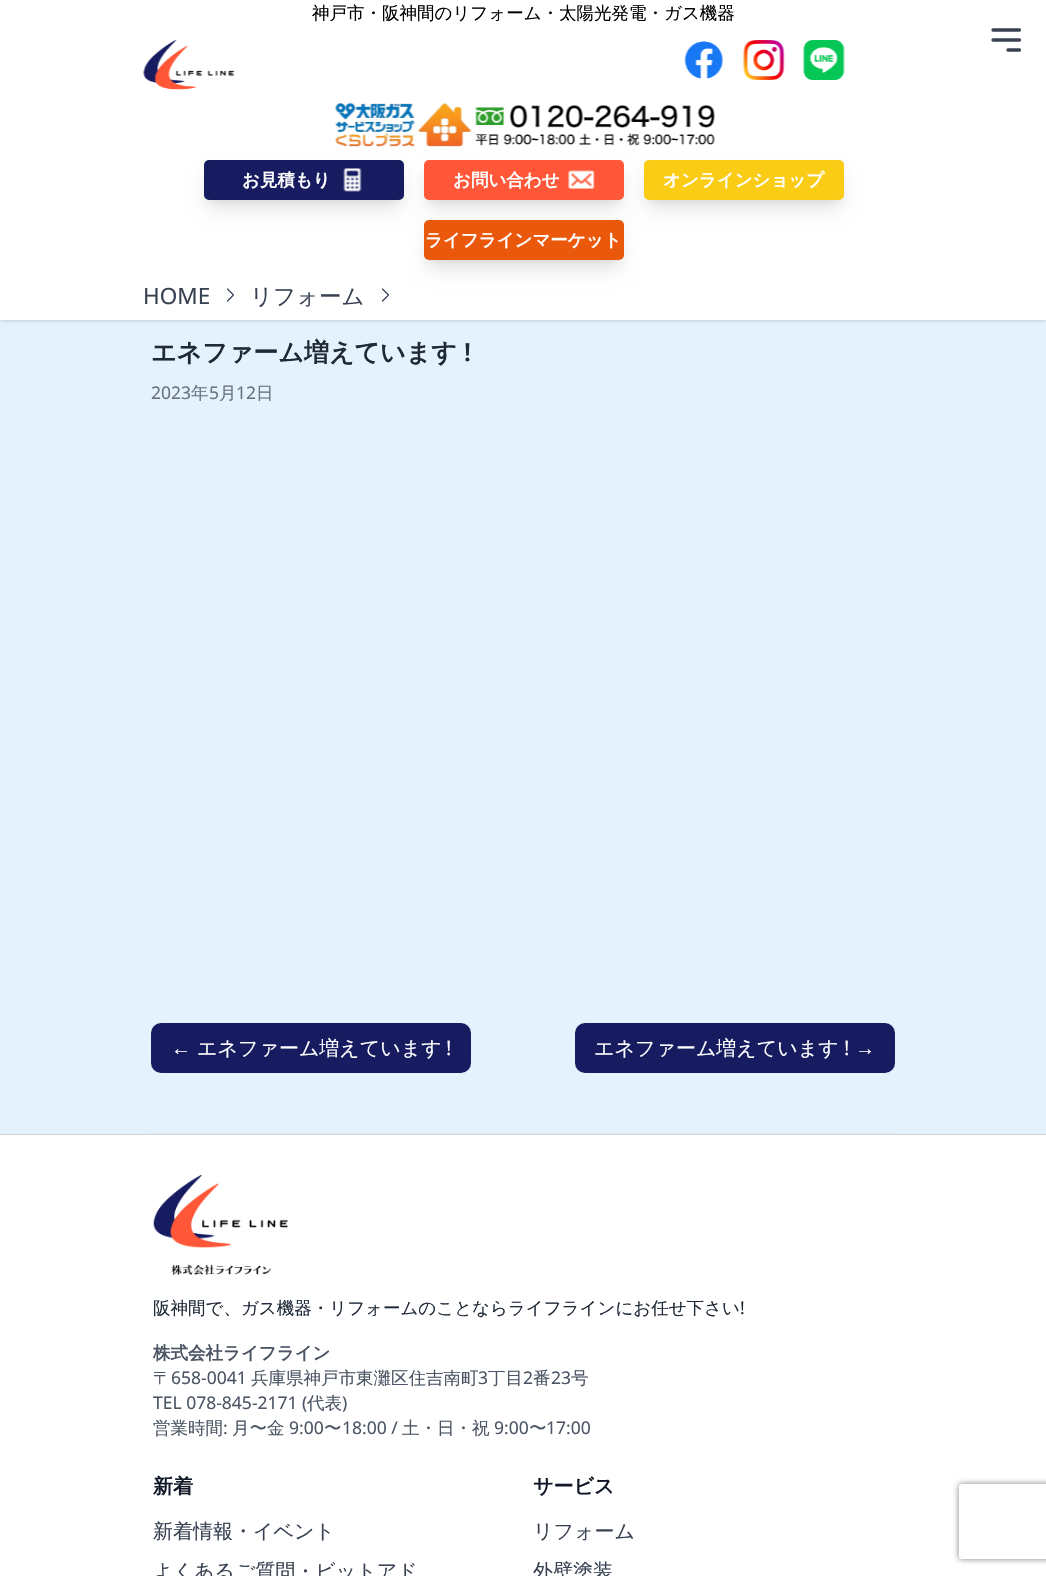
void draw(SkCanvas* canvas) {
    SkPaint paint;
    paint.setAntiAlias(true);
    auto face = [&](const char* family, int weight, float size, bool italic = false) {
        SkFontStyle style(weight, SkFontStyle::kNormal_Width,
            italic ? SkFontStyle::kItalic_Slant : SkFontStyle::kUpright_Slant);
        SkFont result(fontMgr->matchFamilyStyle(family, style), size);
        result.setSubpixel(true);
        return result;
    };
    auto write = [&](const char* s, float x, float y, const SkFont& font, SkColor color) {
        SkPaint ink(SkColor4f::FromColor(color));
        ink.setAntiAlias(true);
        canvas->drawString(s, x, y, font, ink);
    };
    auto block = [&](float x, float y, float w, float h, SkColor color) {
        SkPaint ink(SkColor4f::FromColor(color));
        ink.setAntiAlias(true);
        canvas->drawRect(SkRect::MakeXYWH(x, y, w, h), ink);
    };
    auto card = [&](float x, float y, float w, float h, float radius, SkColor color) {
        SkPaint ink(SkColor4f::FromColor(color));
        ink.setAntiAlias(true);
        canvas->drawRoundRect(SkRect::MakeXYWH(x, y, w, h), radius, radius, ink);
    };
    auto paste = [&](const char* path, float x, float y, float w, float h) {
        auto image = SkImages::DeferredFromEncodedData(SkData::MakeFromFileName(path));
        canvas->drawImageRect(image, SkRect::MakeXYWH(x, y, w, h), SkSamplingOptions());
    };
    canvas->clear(SkColorSetRGB(227, 242, 253));
    paint.setColor(SkColorSetARGB(26, 0, 0, 0));
    paint.setMaskFilter(SkMaskFilter::MakeBlur(kNormal_SkBlurStyle, 1));
    canvas->drawRect(SkRect::MakeXYWH(1, 3, 1044, 317), paint);
    paint.setMaskFilter(nullptr);
    paint.setMaskFilter(SkMaskFilter::MakeBlur(kNormal_SkBlurStyle, 2));
    canvas->drawRect(SkRect::MakeXYWH(0, 1, 1046, 320), paint);
    paint.setMaskFilter(nullptr);
    block(0, 0, 1046, 320, SK_ColorWHITE);
    auto kFont1 = face("WenQuanYi Zen Hei", 500, 17.5f);
    write("神戸市・阪神間のリフォーム・太陽光発電・ガス機器", 312, 19, kFont1, SK_ColorBLACK);
    paint.setStyle(SkPaint::kStroke_Style);
    paint.setStrokeWidth(3.3f);
    paint.setStrokeCap(SkPaint::kRound_Cap);
    paint.setStrokeJoin(SkPaint::kRound_Join);
    paint.setColor(SkColorSetRGB(55, 65, 81));
    canvas->drawPath(SkPathBuilder().moveTo(993, 30).lineTo(1019.5f, 30).moveTo(993, 40).lineTo(1019.5f, 40).moveTo(1008, 50).lineTo(1019.5f, 50).detach(), paint);
    paste("pic1.png", 143, 40, 92, 50);
    paste("pic2.png", 684, 41, 39, 38);
    paste("pic3.png", 743, 40, 42, 40);
    paste("pic4.png", 803, 40, 42, 40);
    paste("pic5.png", 335, 103, 380, 44);
    paint.setStyle(SkPaint::kFill_Style);
    paint.setColor(SkColorSetARGB(26, 0, 0, 0));
    paint.setMaskFilter(SkMaskFilter::MakeBlur(kNormal_SkBlurStyle, 4));
    canvas->drawRect(SkRect::MakeXYWH(209, 170, 190, 30), paint);
    paint.setMaskFilter(nullptr);
    paint.setMaskFilter(SkMaskFilter::MakeBlur(kNormal_SkBlurStyle, 9.5f));
    canvas->drawRoundRect(SkRect::MakeXYWH(208, 176, 192, 33), 1, 1, paint);
    paint.setMaskFilter(nullptr);
    card(204, 160, 200, 40, 5, SkColorSetRGB(23, 28, 97));
    auto kFont2 = face("WenQuanYi Zen Hei", 700, 17.5f);
    write("お見積もり", 242, 186, kFont2, SK_ColorWHITE);
    paste("pic6.png", 343, 168, 19, 24);
    paint.setMaskFilter(SkMaskFilter::MakeBlur(kNormal_SkBlurStyle, 4));
    canvas->drawRect(SkRect::MakeXYWH(429, 170, 190, 30), paint);
    paint.setMaskFilter(nullptr);
    paint.setMaskFilter(SkMaskFilter::MakeBlur(kNormal_SkBlurStyle, 9.5f));
    canvas->drawRoundRect(SkRect::MakeXYWH(428, 176, 192, 33), 1, 1, paint);
    paint.setMaskFilter(nullptr);
    card(424, 160, 200, 40, 5, SkColorSetRGB(255, 87, 55));
    write("お問い合わせ", 453, 186, kFont2, SK_ColorWHITE);
    paste("pic7.png", 568, 170, 27, 19);
    paint.setMaskFilter(SkMaskFilter::MakeBlur(kNormal_SkBlurStyle, 4));
    canvas->drawRect(SkRect::MakeXYWH(649, 170, 190, 30), paint);
    paint.setMaskFilter(nullptr);
    paint.setMaskFilter(SkMaskFilter::MakeBlur(kNormal_SkBlurStyle, 9.5f));
    canvas->drawRoundRect(SkRect::MakeXYWH(648, 176, 192, 33), 1, 1, paint);
    paint.setMaskFilter(nullptr);
    card(644, 160, 200, 40, 5, SkColorSetRGB(250, 204, 21));
    write("オンラインショップ", 663, 186, kFont2, SK_ColorWHITE);
    paint.setMaskFilter(SkMaskFilter::MakeBlur(kNormal_SkBlurStyle, 4));
    canvas->drawRect(SkRect::MakeXYWH(429, 230, 190, 30), paint);
    paint.setMaskFilter(nullptr);
    paint.setMaskFilter(SkMaskFilter::MakeBlur(kNormal_SkBlurStyle, 9.5f));
    canvas->drawRoundRect(SkRect::MakeXYWH(428, 236, 192, 33), 1, 1, paint);
    paint.setMaskFilter(nullptr);
    card(424, 220, 200, 40, 5, SkColorSetRGB(234, 88, 12));
    write("ライフラインマーケット", 425, 246, kFont2, SK_ColorWHITE);
    auto kFont3 = face("Noto Sans", 400, 22.5f);
    write("HOME", 143, 304, kFont3, SkColorSetRGB(55, 65, 81));
    paint.setStyle(SkPaint::kStroke_Style);
    paint.setStrokeWidth(1.2f);
    paint.setColor(SkColorSetRGB(51, 65, 85));
    canvas->drawPath(SkPathBuilder().moveTo(227.5f, 289).lineTo(233.5f, 295).lineTo(227.5f, 301).detach(), paint);
    auto kFont4 = face("WenQuanYi Zen Hei", 500, 22.5f);
    write("リフォーム", 250, 304, kFont4, SkColorSetRGB(55, 65, 81));
    canvas->drawPath(SkPathBuilder().moveTo(382.5f, 289).lineTo(388.5f, 295).lineTo(382.5f, 301).detach(), paint);
    block(151, 1133, 744, 1, SkColorSetRGB(229, 231, 235));
    auto kFont5 = face("WenQuanYi Zen Hei", 700, 25);
    write("エネファーム増えています", 151, 361, kFont5, SkColorSetRGB(31, 41, 55));
    auto kFont6 = face("Noto Sans", 600, 25);
    write("!", 464, 361, kFont6, SkColorSetRGB(31, 41, 55));
    auto kFont7 = face("Noto Sans", 400, 17.5f);
    write("2023", 151, 399, kFont7, SkColorSetRGB(107, 114, 128));
    write("年", 191, 399, kFont1, SkColorSetRGB(107, 114, 128));
    write("5", 209, 399, kFont7, SkColorSetRGB(107, 114, 128));
    write("月", 219, 399, kFont1, SkColorSetRGB(107, 114, 128));
    write("12", 236, 399, kFont7, SkColorSetRGB(107, 114, 128));
    write("日", 256, 399, kFont1, SkColorSetRGB(107, 114, 128));
    card(151, 1023, 320, 50, 10, SkColorSetRGB(23, 28, 97));
    auto kFont8 = face("Liberation Sans", 400, 20);
    write("←", 171, 1055, kFont8, SK_ColorWHITE);
    auto kFont9 = face("WenQuanYi Zen Hei", 500, 20);
    write("エネファーム増えています", 197, 1055, kFont9, SK_ColorWHITE);
    auto kFont10 = face("Noto Sans", 400, 20);
    write("!", 446, 1055, kFont10, SK_ColorWHITE);
    card(575, 1023, 320, 50, 10, SkColorSetRGB(23, 28, 97));
    write("エネファーム増えています", 594, 1055, kFont9, SK_ColorWHITE);
    write("!", 844, 1055, kFont10, SK_ColorWHITE);
    write("→", 855, 1055, kFont8, SK_ColorWHITE);
    block(0, 1135, 1046, 441, SK_ColorWHITE);
    block(0, 1134, 1046, 1, SkColorSetRGB(209, 213, 219));
    paste("pic8.png", 153, 1175, 135, 100);
    write("阪神間で、ガス機器・リフォームのことならライフラインにお任せ下さい", 153, 1314, kFont1, SkColorSetRGB(31, 41, 55));
    write("!", 740, 1314, kFont7, SkColorSetRGB(31, 41, 55));
    write("株式会社ライフライン", 153, 1359, kFont2, SkColorSetRGB(75, 85, 99));
    write("〒", 153, 1384, kFont1, SkColorSetRGB(75, 85, 99));
    write("658-0041", 171, 1384, kFont7, SkColorSetRGB(75, 85, 99));
    write("兵庫県神戸市東灘区住吉南町", 251, 1384, kFont1, SkColorSetRGB(75, 85, 99));
    write("3", 478, 1384, kFont7, SkColorSetRGB(75, 85, 99));
    write("丁目", 488, 1384, kFont1, SkColorSetRGB(75, 85, 99));
    write("2", 523, 1384, kFont7, SkColorSetRGB(75, 85, 99));
    write("番", 533, 1384, kFont1, SkColorSetRGB(75, 85, 99));
    write("23", 551, 1384, kFont7, SkColorSetRGB(75, 85, 99));
    write("号", 571, 1384, kFont1, SkColorSetRGB(75, 85, 99));
    write("TEL 078-845-2171 (", 153, 1409, kFont7, SkColorSetRGB(75, 85, 99));
    write("代表", 307, 1409, kFont1, SkColorSetRGB(75, 85, 99));
    write(")", 342, 1409, kFont7, SkColorSetRGB(75, 85, 99));
    write("営業時間", 153, 1434, kFont1, SkColorSetRGB(75, 85, 99));
    write(":", 223, 1434, kFont7, SkColorSetRGB(75, 85, 99));
    write("月〜金", 232, 1434, kFont1, SkColorSetRGB(75, 85, 99));
    write("9:00", 289, 1434, kFont7, SkColorSetRGB(75, 85, 99));
    write("〜", 324, 1434, kFont1, SkColorSetRGB(75, 85, 99));
    write("18:00 /", 342, 1434, kFont7, SkColorSetRGB(75, 85, 99));
    write("土・日・祝", 402, 1434, kFont1, SkColorSetRGB(75, 85, 99));
    write("9:00", 494, 1434, kFont7, SkColorSetRGB(75, 85, 99));
    write("〜", 529, 1434, kFont1, SkColorSetRGB(75, 85, 99));
    write("17:00", 546, 1434, kFont7, SkColorSetRGB(75, 85, 99));
    auto kFont11 = face("WenQuanYi Zen Hei", 700, 20);
    write("新着", 153, 1493, kFont11, SkColorSetRGB(17, 24, 39));
    write("新着情報・イベント", 153, 1538, kFont9, SkColorSetRGB(55, 65, 81));
    write("よくあるご質問・ビットアド", 153, 1578, kFont9, SkColorSetRGB(55, 65, 81));
    write("サービス", 533, 1493, kFont11, SkColorSetRGB(17, 24, 39));
    write("リフォーム", 533, 1538, kFont9, SkColorSetRGB(55, 65, 81));
    write("外壁塗装", 533, 1578, kFont9, SkColorSetRGB(55, 65, 81));
    canvas->save();
    canvas->clipPath(SkPathBuilder(SkPathFillType::kEvenOdd).moveTo(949, 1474).lineTo(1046, 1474).lineTo(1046, 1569).lineTo(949, 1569).close().moveTo(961.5f, 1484).lineTo(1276.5f, 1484).cubicTo(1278, 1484, 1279, 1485, 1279, 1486.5f).lineTo(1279, 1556.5f).cubicTo(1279, 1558, 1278, 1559, 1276.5f, 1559).lineTo(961.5f, 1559).cubicTo(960, 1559, 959, 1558, 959, 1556.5f).lineTo(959, 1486.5f).cubicTo(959, 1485, 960, 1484, 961.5f, 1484).close().detach(), true);
    paint.setStyle(SkPaint::kFill_Style);
    paint.setColor(SkColorSetRGB(128, 128, 128));
    paint.setMaskFilter(SkMaskFilter::MakeBlur(kNormal_SkBlurStyle, 3));
    canvas->drawRoundRect(SkRect::MakeXYWH(959, 1484, 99, 75), 2.5f, 2.5f, paint);
    paint.setMaskFilter(nullptr);
    canvas->restore();
}
